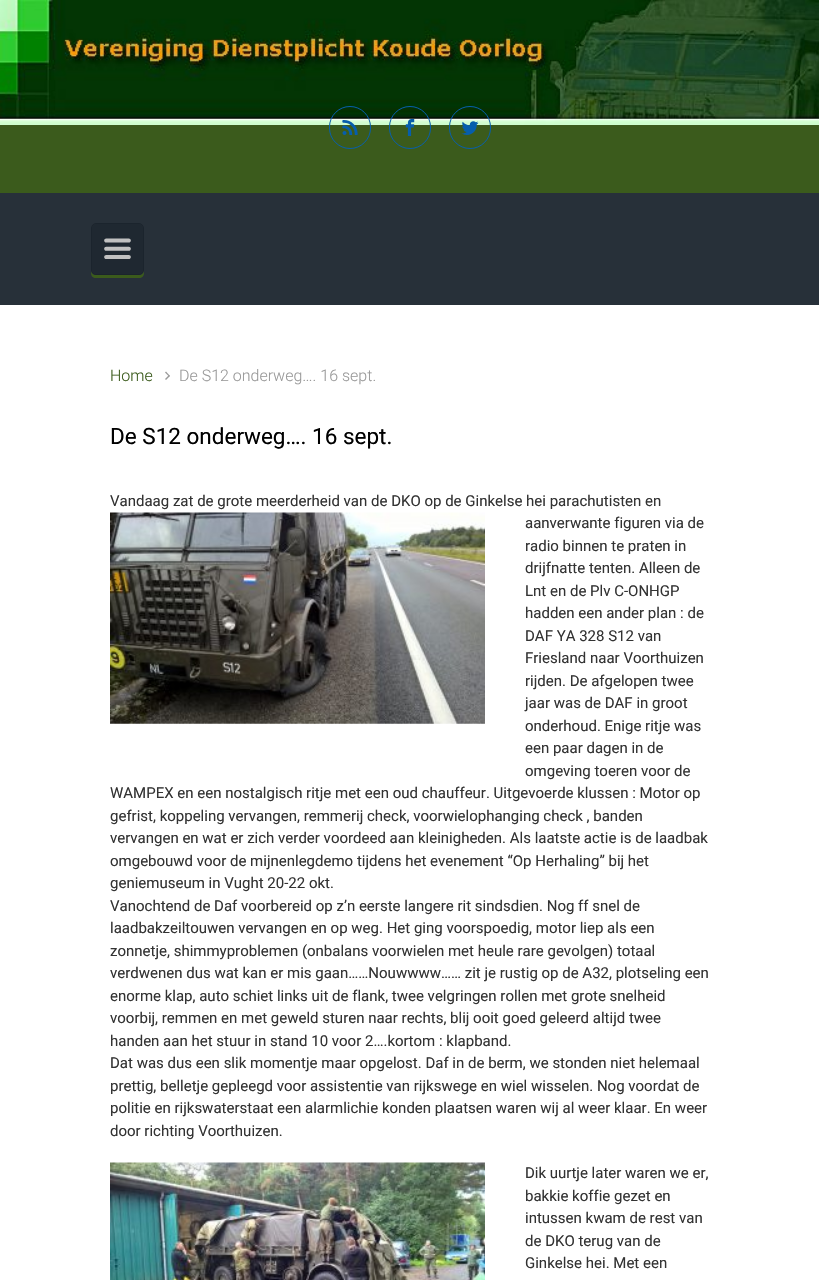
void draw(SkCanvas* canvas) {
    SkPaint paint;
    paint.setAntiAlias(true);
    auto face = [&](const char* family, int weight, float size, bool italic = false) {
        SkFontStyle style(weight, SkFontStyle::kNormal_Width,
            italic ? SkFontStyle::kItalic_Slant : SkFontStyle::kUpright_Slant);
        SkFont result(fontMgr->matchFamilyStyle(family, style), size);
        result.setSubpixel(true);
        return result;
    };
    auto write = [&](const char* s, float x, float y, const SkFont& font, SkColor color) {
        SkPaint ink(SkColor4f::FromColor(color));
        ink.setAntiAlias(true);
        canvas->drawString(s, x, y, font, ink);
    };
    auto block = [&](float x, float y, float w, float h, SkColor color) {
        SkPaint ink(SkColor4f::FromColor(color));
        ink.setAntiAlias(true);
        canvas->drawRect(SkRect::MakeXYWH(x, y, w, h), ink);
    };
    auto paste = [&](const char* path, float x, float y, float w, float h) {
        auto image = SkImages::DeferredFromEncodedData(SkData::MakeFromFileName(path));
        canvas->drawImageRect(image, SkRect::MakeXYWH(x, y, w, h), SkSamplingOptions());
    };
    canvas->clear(SkColorSetRGB(59, 91, 28));
    paste("pic1.png", 0, 0, 819, 125);
    paint.setStyle(SkPaint::kStroke_Style);
    paint.setStrokeWidth(1);
    paint.setColor(SkColorSetRGB(6, 94, 172));
    canvas->drawRoundRect(SkRect::MakeXYWH(329.5f, 106.5f, 41, 42), 20.5f, 20.5f, paint);
    paste("pic2.png", 342, 120, 16, 15);
    canvas->drawRoundRect(SkRect::MakeXYWH(389.5f, 106.5f, 41, 42), 20.5f, 20.5f, paint);
    paste("pic3.png", 405, 119, 10, 17);
    canvas->drawRoundRect(SkRect::MakeXYWH(449.5f, 106.5f, 41, 42), 20.5f, 20.5f, paint);
    paste("pic4.png", 461, 121, 18, 14);
    block(0, 193, 819, 112, SkColorSetRGB(39, 48, 57));
    paint.setStyle(SkPaint::kFill_Style);
    paint.setColor(SkColorSetRGB(59, 91, 28));
    canvas->drawPath(SkPathBuilder().moveTo(91, 228).lineTo(91, 273).cubicTo(91, 276, 93, 278, 96, 278).lineTo(139, 278).cubicTo(142, 278, 144, 276, 144, 273).lineTo(144, 228).lineTo(144, 270).cubicTo(144, 273, 142, 275, 139, 275).lineTo(96, 275).cubicTo(93, 275, 91, 273, 91, 270).close().detach(), paint);
    paint.setColor(SkColorSetRGB(31, 40, 49));
    canvas->drawRoundRect(SkRect::MakeXYWH(91.5f, 223.5f, 52, 51), 4.5f, 4.5f, paint);
    paint.setStyle(SkPaint::kStroke_Style);
    paint.setColor(SkColorSetRGB(27, 36, 45));
    canvas->drawRoundRect(SkRect::MakeXYWH(91.5f, 223.5f, 52, 51), 4.5f, 4.5f, paint);
    paste("pic5.png", 104, 238, 27, 21);
    block(0, 305, 819, 975, SK_ColorWHITE);
    auto kFont1 = face("Roboto", 300, 16);
    write("Home", 110, 381, kFont1, SkColorSetRGB(59, 91, 28));
    paint.setStyle(SkPaint::kFill_Style);
    paint.setColor(SkColorSetRGB(153, 153, 153));
    canvas->drawPath(SkPathBuilder().moveTo(165, 372.5f).lineTo(166, 371.5f).lineTo(170, 376).lineTo(169, 376.5f).close().detach(), paint);
    canvas->drawPath(SkPathBuilder().moveTo(165, 379).lineTo(169, 375).lineTo(170, 376).lineTo(166, 380).close().detach(), paint);
    write("De S12 onderweg…. 16 sept.", 179, 381, kFont1, SkColorSetRGB(153, 153, 153));
    auto kFont2 = face("Roboto", 400, 22.5f);
    write("De S12 onderweg…. 16 sept.", 110, 444, kFont2, SK_ColorBLACK);
    auto kFont3 = face("Roboto", 400, 15);
    write("Vandaag zat de grote meerderheid van de DKO op de Ginkelse hei parachutisten en", 110, 506, kFont3, SkColorSetRGB(51, 51, 51));
    paste("pic6.png", 110, 512, 375, 212);
    write("aanverwante figuren via de", 525, 528, kFont3, SkColorSetRGB(51, 51, 51));
    write("radio binnen te praten in", 525, 551, kFont3, SkColorSetRGB(51, 51, 51));
    write("drijfnatte tenten. Alleen de", 525, 573, kFont3, SkColorSetRGB(51, 51, 51));
    write("Lnt en de Plv C-ONHGP", 525, 596, kFont3, SkColorSetRGB(51, 51, 51));
    write("hadden een ander plan : de", 525, 618, kFont3, SkColorSetRGB(51, 51, 51));
    write("DAF YA 328 S12 van", 525, 641, kFont3, SkColorSetRGB(51, 51, 51));
    write("Friesland naar Voorthuizen", 525, 663, kFont3, SkColorSetRGB(51, 51, 51));
    write("rijden. De afgelopen twee", 525, 686, kFont3, SkColorSetRGB(51, 51, 51));
    write("jaar was de DAF in groot", 525, 708, kFont3, SkColorSetRGB(51, 51, 51));
    write("onderhoud. Enige ritje was", 525, 731, kFont3, SkColorSetRGB(51, 51, 51));
    write("een paar dagen in de", 525, 753, kFont3, SkColorSetRGB(51, 51, 51));
    write("omgeving toeren voor de", 525, 776, kFont3, SkColorSetRGB(51, 51, 51));
    write("WAMPEX en een nostalgisch ritje met een oud chauffeur. Uitgevoerde klussen : Motor op", 110, 798, kFont3, SkColorSetRGB(51, 51, 51));
    write("gefrist, koppeling vervangen, remmerij check, voorwielophanging check , banden", 110, 821, kFont3, SkColorSetRGB(51, 51, 51));
    write("vervangen en wat er zich verder voordeed aan kleinigheden. Als laatste actie is de laadbak", 110, 843, kFont3, SkColorSetRGB(51, 51, 51));
    write("omgebouwd voor de mijnenlegdemo tijdens het evenement “Op Herhaling” bij het", 110, 866, kFont3, SkColorSetRGB(51, 51, 51));
    write("geniemuseum in Vught 20-22 okt.", 110, 888, kFont3, SkColorSetRGB(51, 51, 51));
    write("Vanochtend de Daf voorbereid op z’n eerste langere rit sindsdien. Nog ff snel de", 110, 911, kFont3, SkColorSetRGB(51, 51, 51));
    write("laadbakzeiltouwen vervangen en op weg. Het ging voorspoedig, motor liep als een", 110, 933, kFont3, SkColorSetRGB(51, 51, 51));
    write("zonnetje, shimmyproblemen (onbalans voorwielen met heule rare gevolgen) totaal", 110, 956, kFont3, SkColorSetRGB(51, 51, 51));
    write("verdwenen dus wat kan er mis gaan……Nouwwww…… zit je rustig op de A32, plotseling een", 110, 978, kFont3, SkColorSetRGB(51, 51, 51));
    write("enorme klap, auto schiet links uit de flank, twee velgringen rollen met grote snelheid", 110, 1001, kFont3, SkColorSetRGB(51, 51, 51));
    write("voorbij, remmen en met geweld sturen naar rechts, blij ooit goed geleerd altijd twee", 110, 1023, kFont3, SkColorSetRGB(51, 51, 51));
    write("handen aan het stuur in stand 10 voor 2….kortom : klapband.", 110, 1046, kFont3, SkColorSetRGB(51, 51, 51));
    write("Dat was dus een slik momentje maar opgelost. Daf in de berm, we stonden niet helemaal", 110, 1068, kFont3, SkColorSetRGB(51, 51, 51));
    write("prettig, belletje gepleegd voor assistentie van rijkswege en wiel wisselen. Nog voordat de", 110, 1091, kFont3, SkColorSetRGB(51, 51, 51));
    write("politie en rijkswaterstaat een alarmlichie konden plaatsen waren wij al weer klaar. En weer", 110, 1113, kFont3, SkColorSetRGB(51, 51, 51));
    write("door richting Voorthuizen.", 110, 1136, kFont3, SkColorSetRGB(51, 51, 51));
    paste("pic7.png", 110, 1162, 375, 118);
    write("Dik uurtje later waren we er,", 525, 1178, kFont3, SkColorSetRGB(51, 51, 51));
    write("bakkie koffie gezet en", 525, 1201, kFont3, SkColorSetRGB(51, 51, 51));
    write("intussen kwam de rest van", 525, 1223, kFont3, SkColorSetRGB(51, 51, 51));
    write("de DKO terug van de", 525, 1246, kFont3, SkColorSetRGB(51, 51, 51));
    write("Ginkelse hei. Met een", 525, 1268, kFont3, SkColorSetRGB(51, 51, 51));
}
